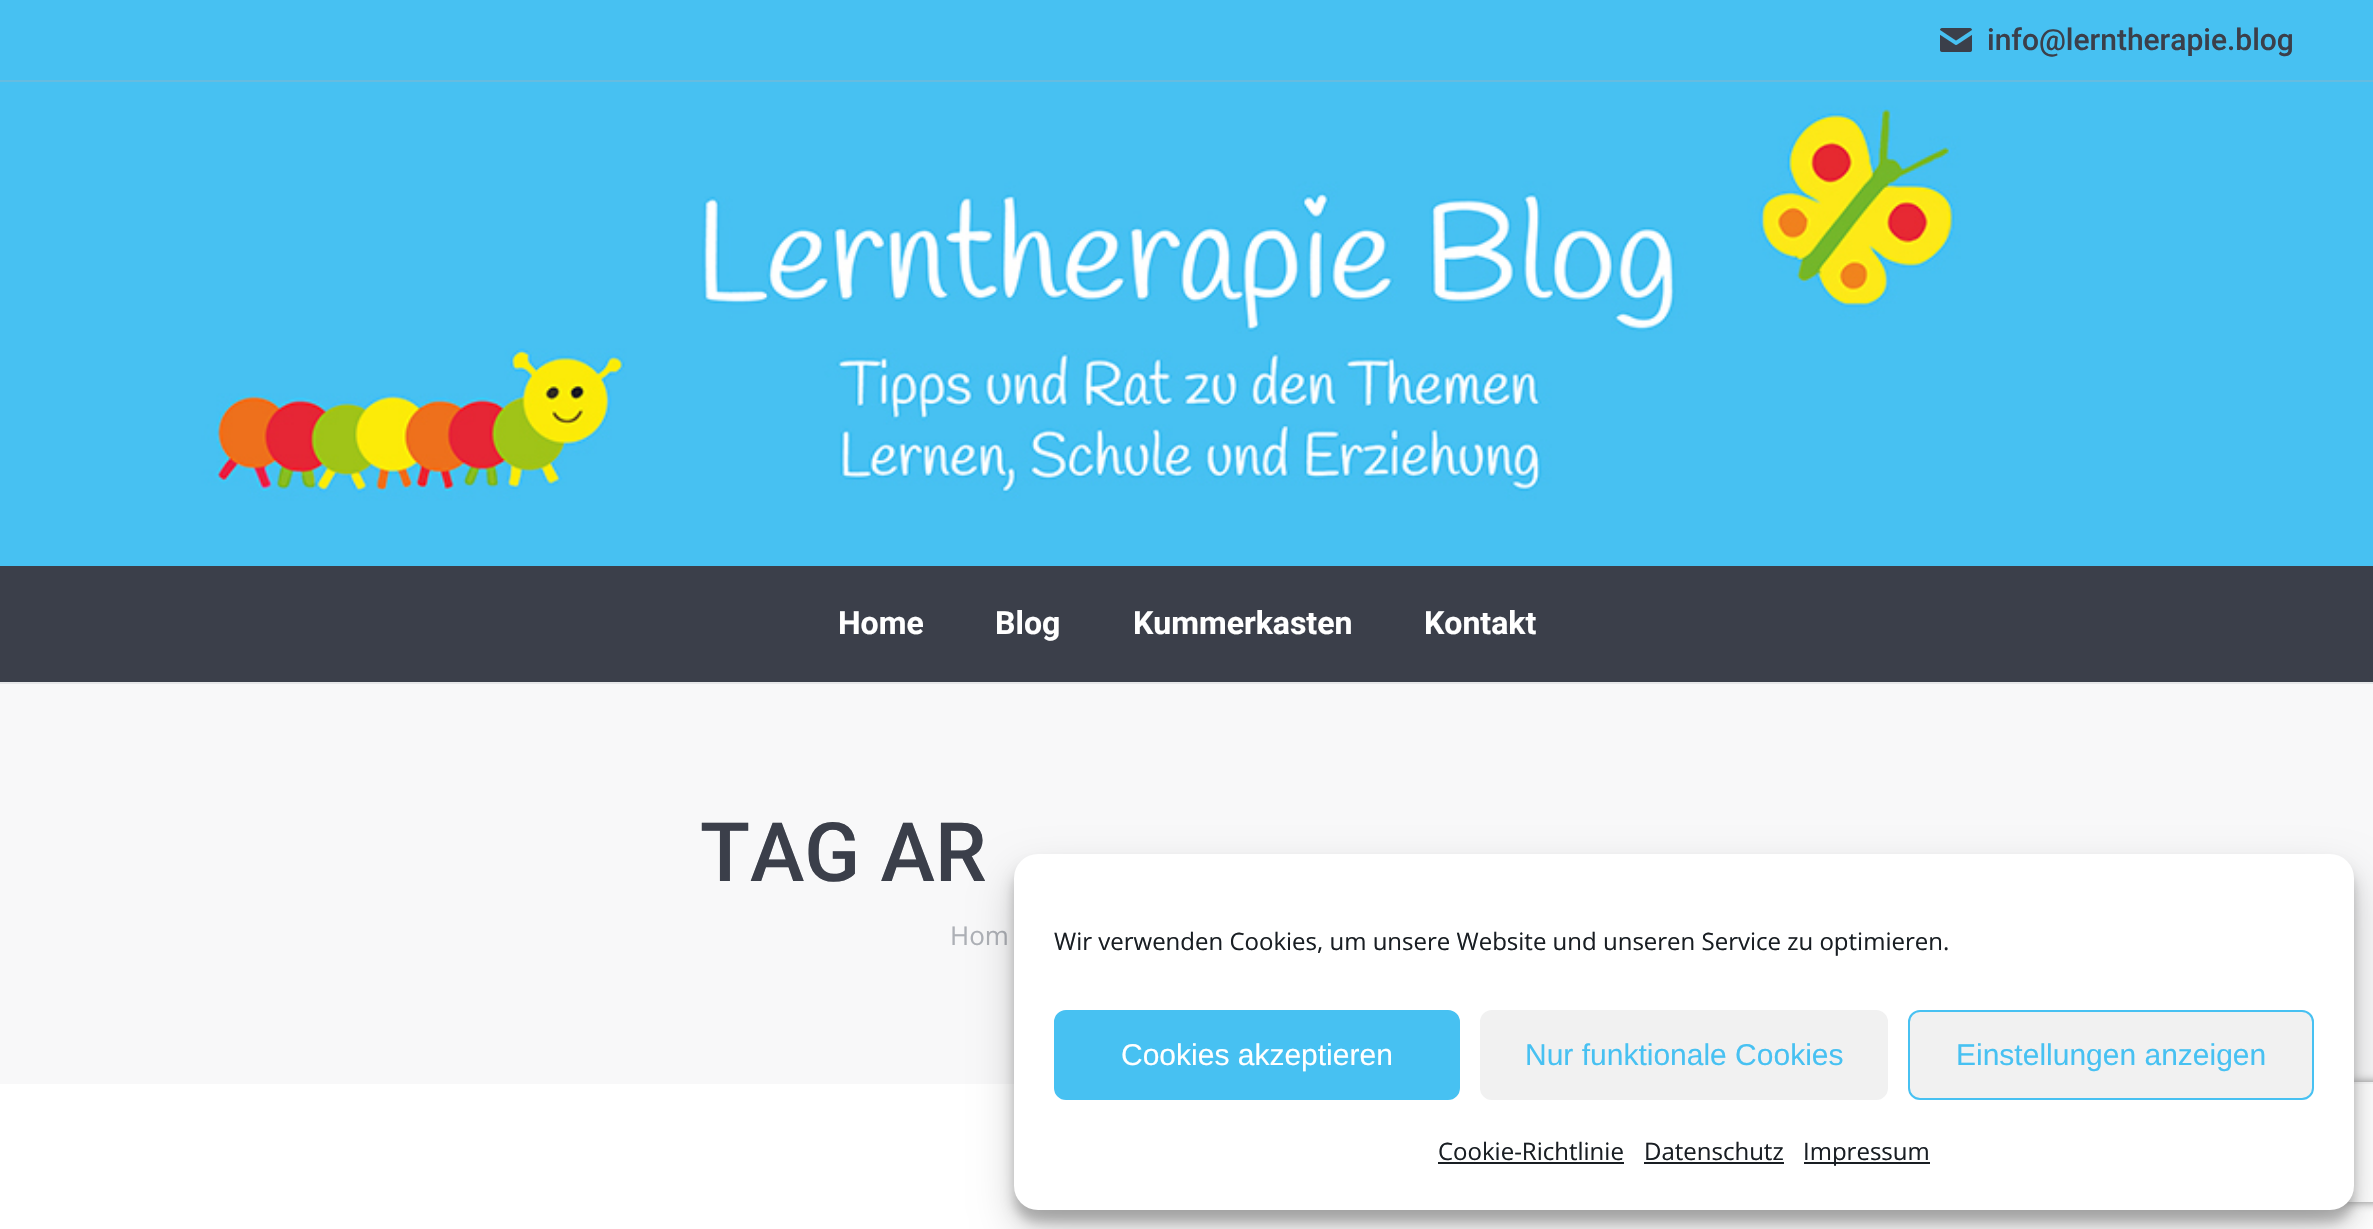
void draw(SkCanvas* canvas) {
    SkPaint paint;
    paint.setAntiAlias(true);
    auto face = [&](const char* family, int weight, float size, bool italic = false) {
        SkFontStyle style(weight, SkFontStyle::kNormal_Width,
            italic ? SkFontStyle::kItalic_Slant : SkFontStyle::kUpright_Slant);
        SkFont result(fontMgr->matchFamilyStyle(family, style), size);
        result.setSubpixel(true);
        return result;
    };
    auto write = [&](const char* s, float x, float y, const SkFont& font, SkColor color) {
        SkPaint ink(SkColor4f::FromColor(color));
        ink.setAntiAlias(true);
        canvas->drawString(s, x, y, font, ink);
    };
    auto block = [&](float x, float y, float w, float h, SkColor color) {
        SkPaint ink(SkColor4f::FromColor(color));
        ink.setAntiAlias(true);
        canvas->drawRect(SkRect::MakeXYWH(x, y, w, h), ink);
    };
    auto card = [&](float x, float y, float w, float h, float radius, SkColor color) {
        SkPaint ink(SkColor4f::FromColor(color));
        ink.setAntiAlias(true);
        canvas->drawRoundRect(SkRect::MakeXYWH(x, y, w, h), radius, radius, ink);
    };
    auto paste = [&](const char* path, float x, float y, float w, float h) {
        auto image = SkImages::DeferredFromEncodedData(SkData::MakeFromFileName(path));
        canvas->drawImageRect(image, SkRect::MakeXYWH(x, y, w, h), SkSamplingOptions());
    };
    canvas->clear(SK_ColorWHITE);
    paste("pic1.png", 0, 0, 2373, 566);
    block(0, 682, 2373, 2, SkColorSetRGB(230, 231, 233));
    paste("pic2.png", 1940, 28, 32, 24);
    auto kFont1 = face("Roboto", 500, 30);
    write("info@lerntherapie.blog", 1987, 50, kFont1, SkColorSetRGB(59, 63, 74));
    block(0, 80, 2373, 2, SkColorSetRGB(102, 188, 224));
    block(0, 566, 2373, 116, SkColorSetRGB(59, 63, 74));
    auto kFont2 = face("Roboto", 700, 32);
    write("Home", 838, 634, kFont2, SK_ColorWHITE);
    write("Blog", 995, 634, kFont2, SK_ColorWHITE);
    write("Kummerkasten", 1133, 634, kFont2, SK_ColorWHITE);
    write("Kontakt", 1424, 634, kFont2, SK_ColorWHITE);
    block(0, 684, 2373, 400, SkColorSetRGB(248, 248, 249));
    auto kFont3 = face("Roboto", 500, 82);
    write("TAG AR", 700, 881, kFont3, SkColorSetRGB(59, 63, 74));
    auto kFont4 = face("Open Sans", 400, 26);
    write("Hom", 950, 945, kFont4, SkColorSetRGB(173, 176, 182));
    paint.setColor(SkColorSetARGB(59, 0, 0, 0));
    paint.setMaskFilter(SkMaskFilter::MakeBlur(kNormal_SkBlurStyle, 6));
    canvas->drawRoundRect(SkRect::MakeXYWH(1014, 866, 1340, 356), 24, 24, paint);
    paint.setMaskFilter(nullptr);
    paint.setColor(SkColorSetARGB(48, 0, 0, 0));
    paint.setMaskFilter(SkMaskFilter::MakeBlur(kNormal_SkBlurStyle, 20));
    canvas->drawRoundRect(SkRect::MakeXYWH(1014, 874, 1340, 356), 24, 24, paint);
    paint.setMaskFilter(nullptr);
    canvas->save();
    canvas->clipPath(SkPathBuilder(SkPathFillType::kEvenOdd).moveTo(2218, 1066).lineTo(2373, 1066).lineTo(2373, 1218).lineTo(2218, 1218).close().moveTo(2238, 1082).lineTo(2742, 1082).cubicTo(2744, 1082, 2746, 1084, 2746, 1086).lineTo(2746, 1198).cubicTo(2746, 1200, 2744, 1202, 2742, 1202).lineTo(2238, 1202).cubicTo(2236, 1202, 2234, 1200, 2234, 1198).lineTo(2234, 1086).cubicTo(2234, 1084, 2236, 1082, 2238, 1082).close().detach(), true);
    paint.setColor(SkColorSetRGB(128, 128, 128));
    paint.setMaskFilter(SkMaskFilter::MakeBlur(kNormal_SkBlurStyle, 5));
    canvas->drawRoundRect(SkRect::MakeXYWH(2234, 1082, 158, 120), 4, 4, paint);
    paint.setMaskFilter(nullptr);
    canvas->restore();
    card(1014, 854, 1340, 356, 24, SK_ColorWHITE);
    auto kFont5 = face("Open Sans", 400, 24);
    write("Wir verwenden Cookies, um unsere Website und unseren Service zu optimieren.", 1054, 950, kFont5, SkColorSetRGB(25, 30, 35));
    paint.setColor(SkColorSetRGB(71, 193, 242));
    canvas->drawRoundRect(SkRect::MakeXYWH(1055, 1011, 404, 88), 11, 11, paint);
    paint.setStyle(SkPaint::kStroke_Style);
    paint.setStrokeWidth(2);
    canvas->drawRoundRect(SkRect::MakeXYWH(1055, 1011, 404, 88), 11, 11, paint);
    auto kFont6 = face("Liberation Sans", 400, 30);
    write("Cookies akzeptieren", 1121, 1065, kFont6, SK_ColorWHITE);
    paint.setStyle(SkPaint::kFill_Style);
    paint.setColor(SkColorSetRGB(241, 241, 241));
    canvas->drawRoundRect(SkRect::MakeXYWH(1481, 1011, 406, 88), 11, 11, paint);
    paint.setStyle(SkPaint::kStroke_Style);
    canvas->drawRoundRect(SkRect::MakeXYWH(1481, 1011, 406, 88), 11, 11, paint);
    write("Nur funktionale Cookies", 1525, 1065, kFont6, SkColorSetRGB(71, 193, 242));
    paint.setStyle(SkPaint::kFill_Style);
    canvas->drawRoundRect(SkRect::MakeXYWH(1909, 1011, 404, 88), 11, 11, paint);
    paint.setStyle(SkPaint::kStroke_Style);
    paint.setColor(SkColorSetRGB(71, 193, 242));
    canvas->drawRoundRect(SkRect::MakeXYWH(1909, 1011, 404, 88), 11, 11, paint);
    write("Einstellungen anzeigen", 1956, 1065, kFont6, SkColorSetRGB(71, 193, 242));
    write("Cookie-Richtlinie", 1438, 1160, kFont5, SkColorSetRGB(25, 30, 35));
    block(1438, 1162, 186, 2, SkColorSetRGB(25, 30, 35));
    write("Datenschutz", 1644, 1160, kFont5, SkColorSetRGB(25, 30, 35));
    block(1644, 1162, 140, 2, SkColorSetRGB(25, 30, 35));
    block(1804, 1162, 126, 2, SkColorSetRGB(25, 30, 35));
    write("Impressum", 1803, 1160, kFont5, SkColorSetRGB(25, 30, 35));
}
